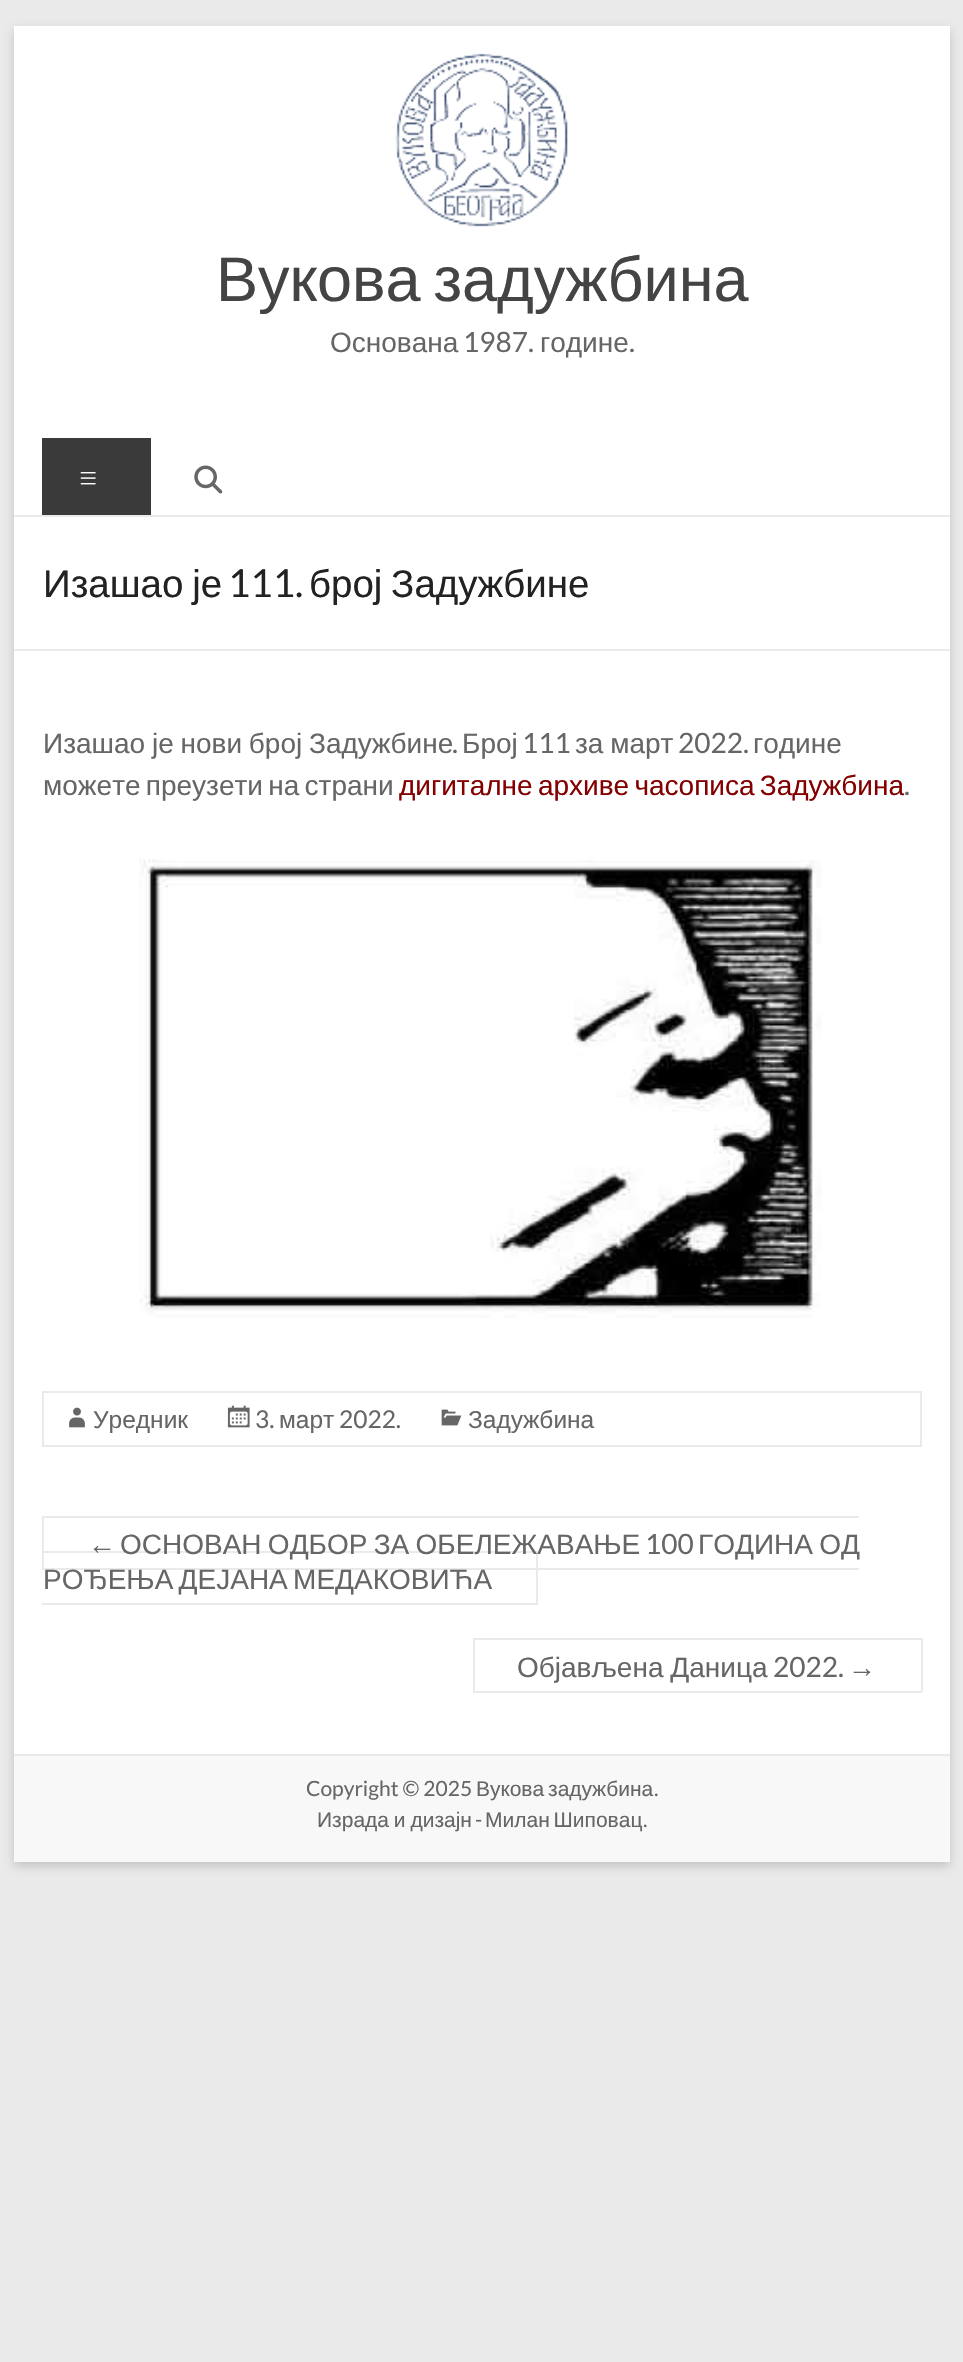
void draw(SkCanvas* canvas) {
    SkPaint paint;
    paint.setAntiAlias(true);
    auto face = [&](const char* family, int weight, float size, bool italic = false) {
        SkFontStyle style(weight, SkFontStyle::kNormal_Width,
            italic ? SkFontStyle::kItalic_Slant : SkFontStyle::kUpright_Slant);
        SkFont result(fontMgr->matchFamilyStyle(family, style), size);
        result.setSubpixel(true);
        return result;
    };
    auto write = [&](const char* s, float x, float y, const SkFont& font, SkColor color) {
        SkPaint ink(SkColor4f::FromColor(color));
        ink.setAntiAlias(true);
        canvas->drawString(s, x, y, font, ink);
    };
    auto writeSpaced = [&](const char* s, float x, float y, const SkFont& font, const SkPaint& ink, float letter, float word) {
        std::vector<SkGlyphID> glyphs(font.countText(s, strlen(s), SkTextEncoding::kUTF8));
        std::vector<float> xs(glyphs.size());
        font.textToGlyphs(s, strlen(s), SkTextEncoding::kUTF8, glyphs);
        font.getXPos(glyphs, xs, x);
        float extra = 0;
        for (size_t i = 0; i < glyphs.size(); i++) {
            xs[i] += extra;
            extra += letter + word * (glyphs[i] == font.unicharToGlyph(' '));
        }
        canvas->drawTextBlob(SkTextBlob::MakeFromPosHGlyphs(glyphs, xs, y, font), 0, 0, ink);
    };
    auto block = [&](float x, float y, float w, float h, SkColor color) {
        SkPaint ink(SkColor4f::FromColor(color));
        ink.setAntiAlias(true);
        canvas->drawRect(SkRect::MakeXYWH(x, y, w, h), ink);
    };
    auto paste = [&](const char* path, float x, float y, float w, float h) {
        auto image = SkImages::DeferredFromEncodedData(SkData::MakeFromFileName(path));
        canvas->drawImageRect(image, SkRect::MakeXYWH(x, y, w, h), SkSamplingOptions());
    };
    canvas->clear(SkColorSetRGB(234, 234, 234));
    paint.setColor(SkColorSetARGB(77, 100, 100, 100));
    paint.setMaskFilter(SkMaskFilter::MakeBlur(kNormal_SkBlurStyle, 5));
    canvas->drawRect(SkRect::MakeXYWH(14, 30, 936, 1836), paint);
    paint.setMaskFilter(nullptr);
    block(14, 26, 936, 1728, SK_ColorWHITE);
    block(14, 515, 936, 2, SkColorSetRGB(234, 234, 234));
    paste("pic1.png", 395, 53, 173, 174);
    auto kFont1 = face("Liberation Sans", 400, 63);
    paint.setColor(SkColorSetRGB(68, 68, 68));
    writeSpaced("Вукова задужбина", 216, 301, kFont1, paint, 0, -5);
    auto kFont2 = face("Liberation Sans", 400, 28);
    write("Основана", 330, 352, kFont2, SkColorSetRGB(102, 102, 102));
    auto kFont3 = face("Lato", 400, 28);
    write("1987.", 463, 352, kFont3, SkColorSetRGB(102, 102, 102));
    write("године", 540, 352, kFont2, SkColorSetRGB(102, 102, 102));
    write(".", 629, 352, kFont3, SkColorSetRGB(102, 102, 102));
    block(42, 438, 109, 77, SkColorSetRGB(58, 58, 58));
    auto kFont4 = face("Lato", 300, 35);
    write("≡", 78, 490, kFont4, SK_ColorWHITE);
    paste("pic2.png", 194, 465, 29, 29);
    block(14, 649, 936, 2, SkColorSetRGB(234, 234, 234));
    auto kFont5 = face("Liberation Sans", 400, 38.5f);
    paint.setColor(SkColorSetRGB(34, 34, 34));
    writeSpaced("Изашао је", 43, 597, kFont5, paint, 0, -2);
    auto kFont6 = face("Lato", 400, 38.5f);
    write("111.", 228, 597, kFont6, SkColorSetRGB(34, 34, 34));
    writeSpaced("број Задужбине", 309, 597, kFont5, paint, 0, -2);
    paint.setColor(SkColorSetRGB(102, 102, 102));
    writeSpaced("Изашао је нови број Задужбине", 43, 753, kFont2, paint, 0, -1);
    write(".", 452, 753, kFont3, SkColorSetRGB(102, 102, 102));
    write("Број", 462, 753, kFont2, SkColorSetRGB(102, 102, 102));
    write("111", 522, 753, kFont3, SkColorSetRGB(102, 102, 102));
    writeSpaced("за март", 575, 753, kFont2, paint, 0, -1);
    write("2022.", 678, 753, kFont3, SkColorSetRGB(102, 102, 102));
    write("године", 753, 753, kFont2, SkColorSetRGB(102, 102, 102));
    writeSpaced("можете преузети на страни", 43, 795, kFont2, paint, 0, -2.5f);
    paint.setColor(SkColorSetRGB(132, 0, 0));
    writeSpaced("дигиталне архиве часописа Задужбина", 399, 795, kFont2, paint, 0, -2.5f);
    write(".", 904, 795, kFont3, SkColorSetRGB(102, 102, 102));
    paste("pic3.png", 139, 859, 683, 459);
    paint.setStyle(SkPaint::kStroke_Style);
    paint.setStrokeWidth(2);
    paint.setColor(SkColorSetRGB(234, 234, 234));
    canvas->drawRect(SkRect::MakeXYWH(43, 1392, 878, 54), paint);
    paste("pic4.png", 69, 1407, 16, 21);
    auto kFont7 = face("Liberation Sans", 400, 24.5f);
    write("Уредник", 93, 1428, kFont7, SkColorSetRGB(102, 102, 102));
    paste("pic5.png", 227, 1405, 23, 23);
    auto kFont8 = face("Lato", 400, 24.5f);
    write("3.", 255, 1428, kFont8, SkColorSetRGB(102, 102, 102));
    write("март", 279, 1428, kFont7, SkColorSetRGB(102, 102, 102));
    write("2022.", 339, 1428, kFont8, SkColorSetRGB(102, 102, 102));
    paste("pic6.png", 441, 1409, 21, 17);
    write("Задужбина", 468, 1428, kFont7, SkColorSetRGB(102, 102, 102));
    block(42, 1516, 817, 2, SkColorSetRGB(234, 234, 234));
    block(42, 1568, 817, 2, SkColorSetRGB(234, 234, 234));
    block(42, 1516, 2, 54, SkColorSetRGB(234, 234, 234));
    block(42, 1551, 495, 2, SkColorSetRGB(234, 234, 234));
    write("←", 88, 1554, kFont2, SkColorSetRGB(102, 102, 102));
    block(536, 1551, 2, 54, SkColorSetRGB(234, 234, 234));
    paint.setStyle(SkPaint::kFill_Style);
    paint.setColor(SkColorSetRGB(102, 102, 102));
    writeSpaced("ОСНОВАН ОДБОР ЗА ОБЕЛЕЖАВАЊЕ", 120, 1554, kFont2, paint, 0, -1.5f);
    write("100", 645, 1554, kFont3, SkColorSetRGB(102, 102, 102));
    writeSpaced("ГОДИНА ОД", 698, 1554, kFont2, paint, 0, -1.5f);
    writeSpaced("РОЂЕЊА ДЕЈАНА МЕДАКОВИЋА", 43, 1589, kFont2, paint, 0, -2.5f);
    block(42, 1603, 495, 2, SkColorSetRGB(234, 234, 234));
    writeSpaced("Објављена Даница", 517, 1677, kFont2, paint, 0, -1);
    block(473, 1638, 449, 2, SkColorSetRGB(234, 234, 234));
    block(473, 1691, 376, 2, SkColorSetRGB(234, 234, 234));
    block(473, 1638, 2, 54, SkColorSetRGB(234, 234, 234));
    write("2022.", 773, 1677, kFont3, SkColorSetRGB(102, 102, 102));
    write("→", 848, 1677, kFont2, SkColorSetRGB(102, 102, 102));
    block(921, 1638, 2, 54, SkColorSetRGB(234, 234, 234));
    block(849, 1691, 73, 2, SkColorSetRGB(234, 234, 234));
    block(14, 1756, 936, 106, SkColorSetRGB(248, 248, 248));
    block(14, 1754, 936, 2, SkColorSetRGB(234, 234, 234));
    auto kFont9 = face("Lato", 400, 21);
    write("Copyright © 2025", 306, 1796, kFont9, SkColorSetRGB(102, 102, 102));
    auto kFont10 = face("Liberation Sans", 400, 21);
    writeSpaced("Вукова задужбина", 476, 1796, kFont10, paint, 0, -2);
    write(".", 654, 1796, kFont9, SkColorSetRGB(102, 102, 102));
    writeSpaced("Израда и дизајн", 317, 1827, kFont10, paint, 0, -1);
    write("-", 475, 1827, kFont9, SkColorSetRGB(102, 102, 102));
    writeSpaced("Милан Шиповац", 485, 1827, kFont10, paint, 0, -2);
    write(".", 643, 1827, kFont9, SkColorSetRGB(102, 102, 102));
}
